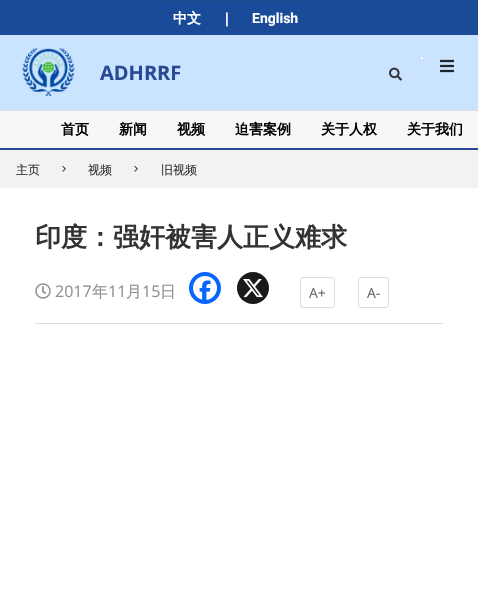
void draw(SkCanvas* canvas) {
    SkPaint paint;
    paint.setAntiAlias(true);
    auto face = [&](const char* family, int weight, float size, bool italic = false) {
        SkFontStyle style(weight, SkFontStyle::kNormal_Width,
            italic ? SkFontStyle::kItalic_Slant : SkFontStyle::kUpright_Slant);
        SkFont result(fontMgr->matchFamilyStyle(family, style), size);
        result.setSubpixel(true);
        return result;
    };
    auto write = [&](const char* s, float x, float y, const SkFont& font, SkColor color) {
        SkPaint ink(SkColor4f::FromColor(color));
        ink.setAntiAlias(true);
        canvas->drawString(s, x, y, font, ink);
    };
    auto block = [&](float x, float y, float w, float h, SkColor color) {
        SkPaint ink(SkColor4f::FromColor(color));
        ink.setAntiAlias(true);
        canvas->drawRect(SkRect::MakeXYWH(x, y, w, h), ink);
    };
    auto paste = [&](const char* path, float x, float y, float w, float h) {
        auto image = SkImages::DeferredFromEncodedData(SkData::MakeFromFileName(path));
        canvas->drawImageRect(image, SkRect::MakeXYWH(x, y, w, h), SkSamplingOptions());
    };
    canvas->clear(SkColorSetRGB(247, 247, 247));
    block(0, 0, 478, 35, SkColorSetRGB(25, 75, 152));
    block(160, 0, 158, 1, SkColorSetRGB(33, 76, 141));
    auto kFont1 = face("WenQuanYi Zen Hei", 700, 14);
    write("中文", 173, 23, kFont1, SK_ColorWHITE);
    auto kFont2 = face("Open Sans", 700, 14);
    write("|", 223, 23, kFont2, SK_ColorWHITE);
    auto kFont3 = face("Roboto", 700, 14);
    write("English", 252, 23, kFont3, SK_ColorWHITE);
    block(0, 35, 478, 75, SkColorSetRGB(202, 228, 255));
    paste("pic1.png", 22, 48, 53, 49);
    auto kFont4 = face("Open Sans", 700, 20);
    write("ADHRRF", 100, 80, kFont4, SkColorSetRGB(39, 74, 147));
    block(421, 57, 2, 2, SkColorSetRGB(248, 248, 248));
    paste("pic2.png", 389, 67, 13, 14);
    paste("pic3.png", 440, 59, 14, 14);
    block(0, 148, 478, 2, SkColorSetRGB(39, 74, 147));
    block(0, 110, 478, 1, SkColorSetRGB(221, 221, 221));
    write("首页", 61, 134, kFont1, SK_ColorBLACK);
    write("新闻", 119, 134, kFont1, SK_ColorBLACK);
    write("视频", 177, 134, kFont1, SK_ColorBLACK);
    write("迫害案例", 235, 134, kFont1, SK_ColorBLACK);
    write("关于人权", 321, 134, kFont1, SK_ColorBLACK);
    write("关于我们", 407, 134, kFont1, SK_ColorBLACK);
    block(0, 188, 478, 418, SK_ColorWHITE);
    block(0, 150, 478, 38, SkColorSetRGB(242, 242, 242));
    auto kFont5 = face("WenQuanYi Zen Hei", 500, 12);
    write("主页", 16, 174, kFont5, SkColorSetRGB(51, 51, 51));
    paste("pic4.png", 62, 165, 4, 7);
    write("视频", 88, 174, kFont5, SkColorSetRGB(51, 51, 51));
    paste("pic4.png", 134, 165, 4, 7);
    write("旧视频", 161, 174, kFont5, SkColorSetRGB(51, 51, 51));
    block(35, 323, 408, 1, SkColorSetRGB(221, 221, 221));
    auto kFont6 = face("WenQuanYi Zen Hei", 700, 26);
    write("印度：强奸被害人正义难求", 35, 246, kFont6, SkColorSetRGB(51, 51, 51));
    paste("pic5.png", 35, 283, 16, 16);
    auto kFont7 = face("Open Sans", 400, 16);
    write("2017", 55, 297, kFont7, SkColorSetRGB(145, 145, 145));
    auto kFont8 = face("WenQuanYi Zen Hei", 500, 16);
    write("年", 92, 297, kFont8, SkColorSetRGB(145, 145, 145));
    write("11", 108, 297, kFont7, SkColorSetRGB(145, 145, 145));
    write("月", 126, 297, kFont8, SkColorSetRGB(145, 145, 145));
    write("15", 142, 297, kFont7, SkColorSetRGB(145, 145, 145));
    write("日", 160, 297, kFont8, SkColorSetRGB(145, 145, 145));
    paint.setColor(SkColorSetRGB(8, 102, 255));
    canvas->drawCircle(205, 288, 16, paint);
    paste("pic6.png", 193, 276, 24, 24);
    paint.setColor(SkColorSetRGB(26, 26, 26));
    canvas->drawCircle(253, 288, 16, paint);
    paste("pic7.png", 243, 279, 20, 19);
    paint.setStyle(SkPaint::kStroke_Style);
    paint.setStrokeWidth(1);
    paint.setColor(SkColorSetRGB(221, 221, 221));
    canvas->drawRoundRect(SkRect::MakeXYWH(300.5f, 277.5f, 34, 30), 2.5f, 2.5f, paint);
    auto kFont9 = face("Open Sans", 400, 14);
    write("A+", 309, 298, kFont9, SkColorSetRGB(102, 102, 102));
    canvas->drawRoundRect(SkRect::MakeXYWH(358.5f, 277.5f, 30, 30), 2.5f, 2.5f, paint);
    write("A-", 367, 298, kFont9, SkColorSetRGB(102, 102, 102));
}
